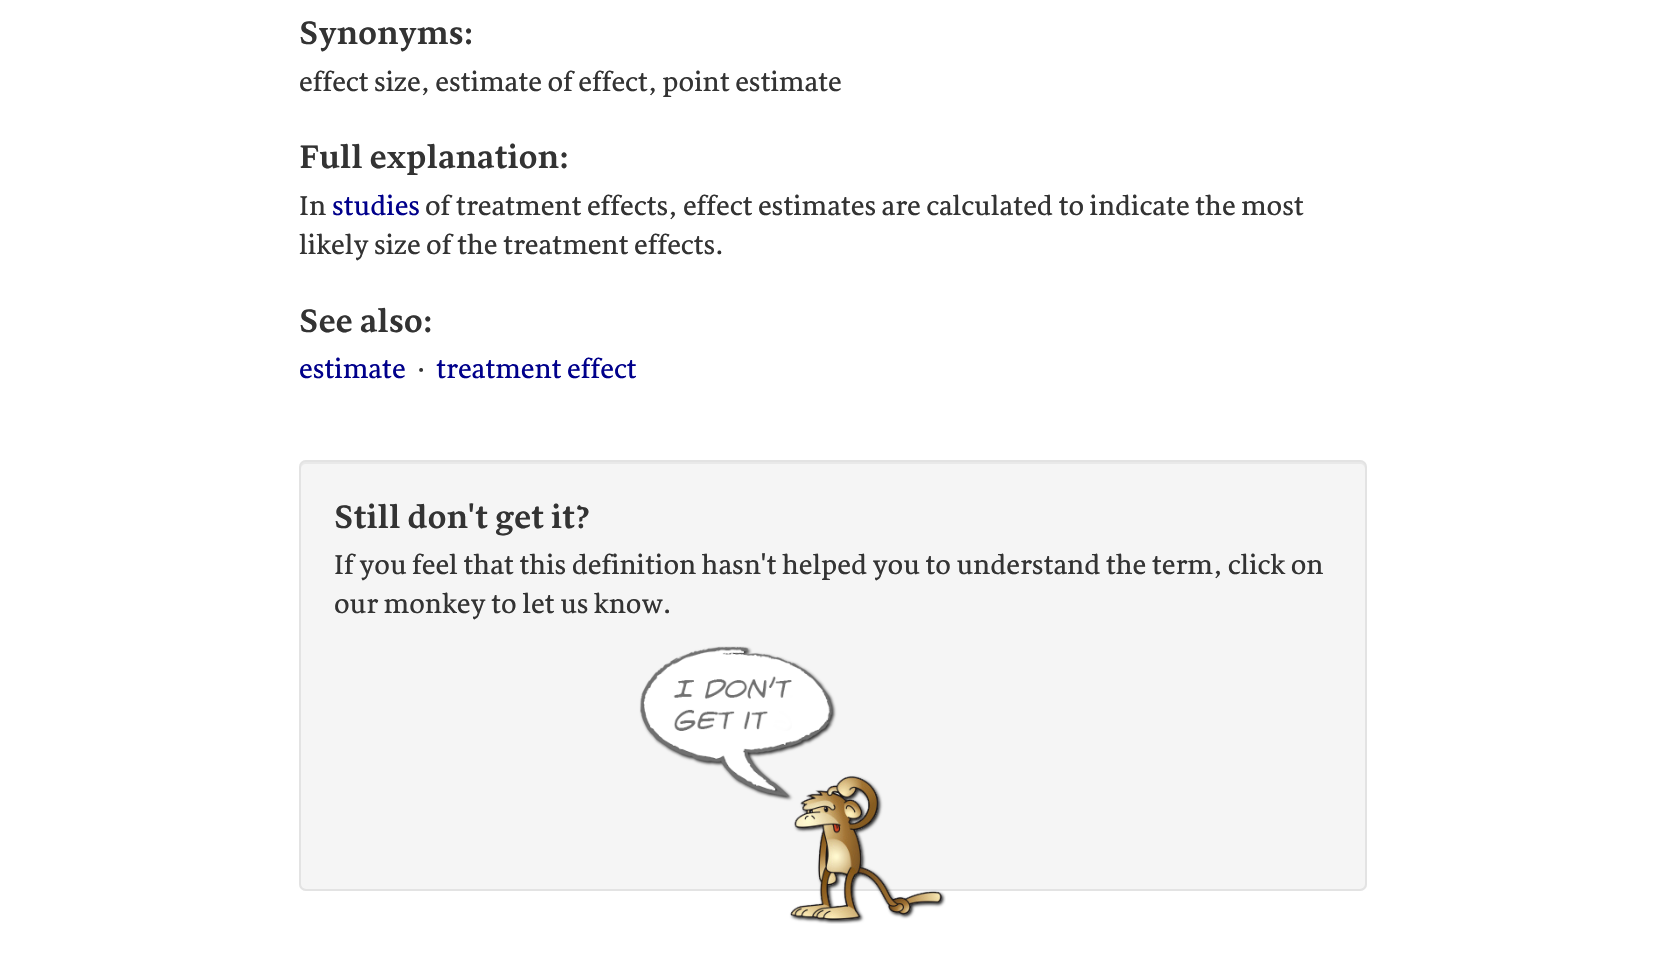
void draw(SkCanvas* canvas) {
    SkPaint paint;
    paint.setAntiAlias(true);
    auto face = [&](const char* family, int weight, float size, bool italic = false) {
        SkFontStyle style(weight, SkFontStyle::kNormal_Width,
            italic ? SkFontStyle::kItalic_Slant : SkFontStyle::kUpright_Slant);
        SkFont result(fontMgr->matchFamilyStyle(family, style), size);
        result.setSubpixel(true);
        return result;
    };
    auto write = [&](const char* s, float x, float y, const SkFont& font, SkColor color) {
        SkPaint ink(SkColor4f::FromColor(color));
        ink.setAntiAlias(true);
        canvas->drawString(s, x, y, font, ink);
    };
    auto card = [&](float x, float y, float w, float h, float radius, SkColor color) {
        SkPaint ink(SkColor4f::FromColor(color));
        ink.setAntiAlias(true);
        canvas->drawRoundRect(SkRect::MakeXYWH(x, y, w, h), radius, radius, ink);
    };
    auto paste = [&](const char* path, float x, float y, float w, float h) {
        auto image = SkImages::DeferredFromEncodedData(SkData::MakeFromFileName(path));
        canvas->drawImageRect(image, SkRect::MakeXYWH(x, y, w, h), SkSamplingOptions());
    };
    canvas->clear(SK_ColorWHITE);
    auto kFont1 = face("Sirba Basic", 700, 33.25f);
    write("Synonyms:", 299, 44, kFont1, SkColorSetRGB(51, 51, 51));
    auto kFont2 = face("Sirba Basic", 400, 28);
    write("effect size, estimate of effect, point estimate", 299, 91, kFont2, SkColorSetRGB(51, 51, 51));
    write("Full explanation:", 299, 168, kFont1, SkColorSetRGB(51, 51, 51));
    write("In", 299, 215, kFont2, SkColorSetRGB(51, 51, 51));
    write("studies", 332, 215, kFont2, SkColorSetRGB(0, 0, 139));
    write("of treatment effects, effect estimates are calculated to indicate the most", 425, 215, kFont2, SkColorSetRGB(51, 51, 51));
    write("likely size of the treatment effects.", 299, 254, kFont2, SkColorSetRGB(51, 51, 51));
    write("See also:", 299, 332, kFont1, SkColorSetRGB(51, 51, 51));
    write("estimate", 299, 378, kFont2, SkColorSetRGB(0, 0, 139));
    write("·", 417, 378, kFont2, SkColorSetRGB(51, 51, 51));
    write("treatment effect", 436, 378, kFont2, SkColorSetRGB(0, 0, 139));
    card(299, 460, 1068, 431, 7, SkColorSetRGB(245, 245, 245));
    paint.setColor(SkColorSetRGB(233, 233, 233));
    canvas->drawPath(SkPathBuilder().moveTo(306, 464).lineTo(1360, 464).cubicTo(1363, 464, 1365, 466, 1365, 469).lineTo(1365, 467).cubicTo(1365, 464, 1363, 462, 1360, 462).lineTo(306, 462).cubicTo(303, 462, 301, 464, 301, 467).lineTo(301, 469).cubicTo(301, 466, 303, 464, 306, 464).close().detach(), paint);
    paint.setStyle(SkPaint::kStroke_Style);
    paint.setStrokeWidth(2);
    paint.setColor(SkColorSetRGB(227, 227, 227));
    canvas->drawRoundRect(SkRect::MakeXYWH(300, 461, 1066, 429), 6, 6, paint);
    write("Still don't get it?", 334, 528, kFont1, SkColorSetRGB(51, 51, 51));
    write("If you feel that this definition hasn't helped you to understand the term, click on", 334, 574, kFont2, SkColorSetRGB(51, 51, 51));
    write("our monkey to let us know.", 334, 613, kFont2, SkColorSetRGB(51, 51, 51));
    paste("pic1.png", 639, 646, 307, 278);
}
